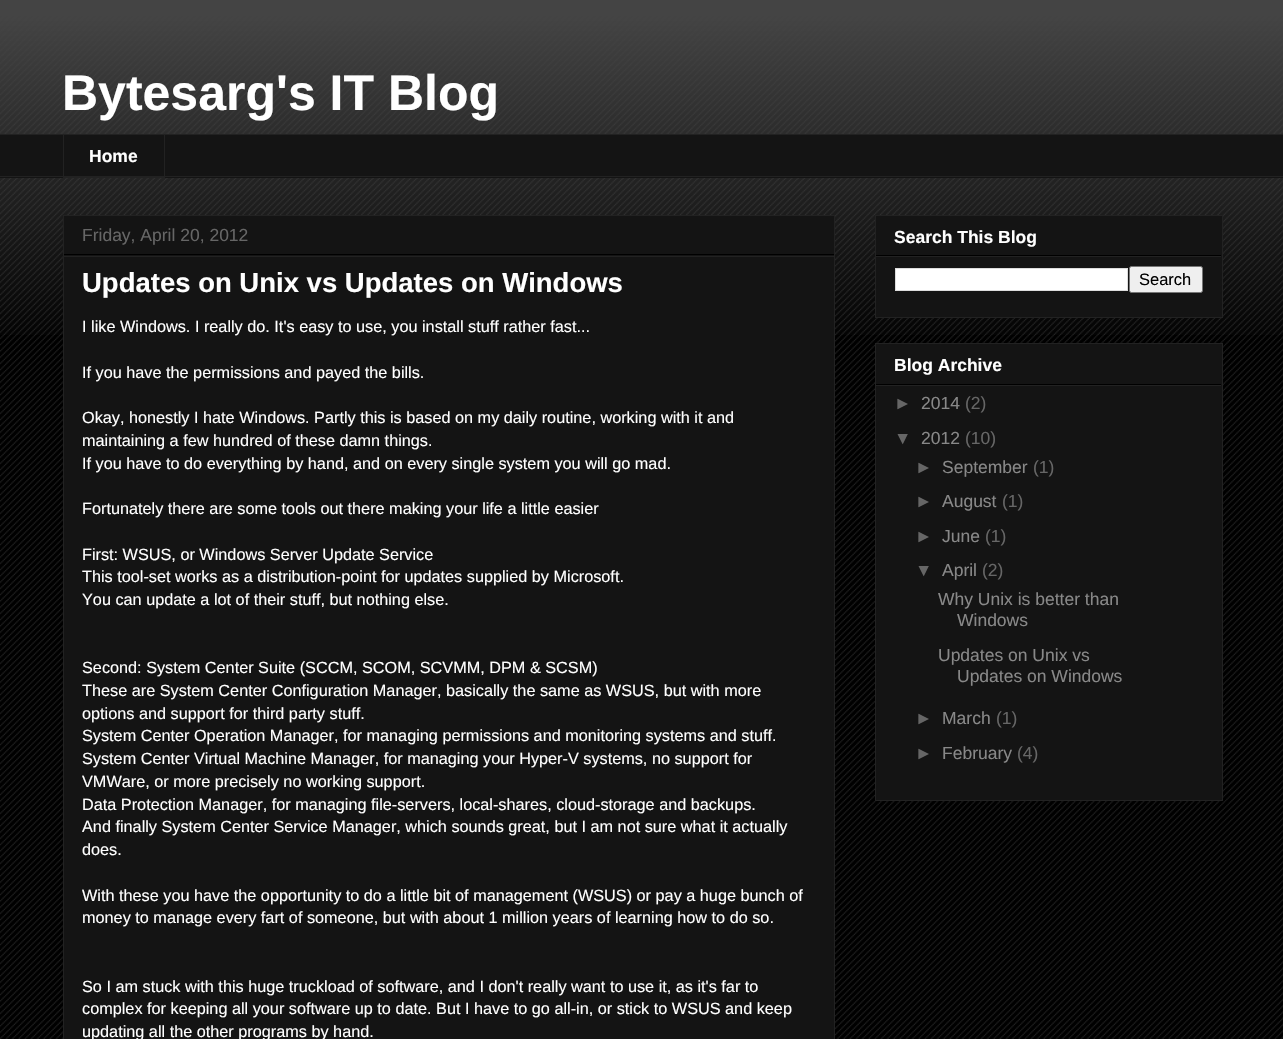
void draw(SkCanvas* canvas) {
    SkPaint paint;
    paint.setAntiAlias(true);
    auto face = [&](const char* family, int weight, float size, bool italic = false) {
        SkFontStyle style(weight, SkFontStyle::kNormal_Width,
            italic ? SkFontStyle::kItalic_Slant : SkFontStyle::kUpright_Slant);
        SkFont result(fontMgr->matchFamilyStyle(family, style), size);
        result.setSubpixel(true);
        return result;
    };
    auto write = [&](const char* s, float x, float y, const SkFont& font, SkColor color) {
        SkPaint ink(SkColor4f::FromColor(color));
        ink.setAntiAlias(true);
        canvas->drawString(s, x, y, font, ink);
    };
    auto block = [&](float x, float y, float w, float h, SkColor color) {
        SkPaint ink(SkColor4f::FromColor(color));
        ink.setAntiAlias(true);
        canvas->drawRect(SkRect::MakeXYWH(x, y, w, h), ink);
    };
    auto paste = [&](const char* path, float x, float y, float w, float h) {
        auto image = SkImages::DeferredFromEncodedData(SkData::MakeFromFileName(path));
        canvas->drawImageRect(image, SkRect::MakeXYWH(x, y, w, h), SkSamplingOptions());
    };
    canvas->clear(SK_ColorBLACK);
    paste("pic1.png", 0, 16, 1283, 1023);
    paste("pic2.png", 0, 0, 1283, 335);
    auto kFont1 = face("Liberation Sans", 700, 50);
    write("Bytesarg's IT Blog", 62, 110, kFont1, SK_ColorWHITE);
    block(0, 135, 1283, 43, SkColorSetRGB(20, 20, 20));
    block(0, 134, 1283, 1, SkColorSetRGB(34, 34, 34));
    paint.setStyle(SkPaint::kStroke_Style);
    paint.setStrokeWidth(1);
    paint.setColor(SkColorSetRGB(34, 34, 34));
    canvas->drawRect(SkRect::MakeXYWH(63.5f, 134.5f, 101, 43), paint);
    auto kFont2 = face("Liberation Sans", 700, 17.5f);
    write("Home", 89, 162, kFont2, SK_ColorWHITE);
    block(0, 176, 1283, 1, SkColorSetRGB(34, 34, 34));
    paint.setStyle(SkPaint::kFill_Style);
    paint.setColor(SkColorSetRGB(20, 20, 20));
    canvas->drawRect(SkRect::MakeXYWH(63.5f, 215.5f, 771, 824), paint);
    paint.setStyle(SkPaint::kStroke_Style);
    paint.setColor(SkColorSetRGB(34, 34, 34));
    canvas->drawRect(SkRect::MakeXYWH(63.5f, 215.5f, 771, 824), paint);
    block(64, 254, 770, 1, SK_ColorBLACK);
    auto kFont3 = face("Liberation Sans", 400, 17.5f);
    write("Friday, April 20, 2012", 82, 241, kFont3, SkColorSetRGB(102, 102, 102));
    block(64, 256, 770, 1, SkColorSetRGB(34, 34, 34));
    auto kFont4 = face("Liberation Sans", 700, 27.5f);
    write("Updates on Unix vs Updates on Windows", 82, 292, kFont4, SK_ColorWHITE);
    auto kFont5 = face("Liberation Sans", 400, 16.25f);
    write("I like Windows. I really do. It's easy to use, you install stuff rather fast...", 82, 332, kFont5, SK_ColorWHITE);
    write("If you have the permissions and payed the bills.", 82, 378, kFont5, SK_ColorWHITE);
    write("Okay, honestly I hate Windows. Partly this is based on my daily routine, working with it and", 82, 423, kFont5, SK_ColorWHITE);
    write("maintaining a few hundred of these damn things.", 82, 446, kFont5, SK_ColorWHITE);
    write("If you have to do everything by hand, and on every single system you will go mad.", 82, 469, kFont5, SK_ColorWHITE);
    write("Fortunately there are some tools out there making your life a little easier", 82, 514, kFont5, SK_ColorWHITE);
    write("First: WSUS, or Windows Server Update Service", 82, 560, kFont5, SK_ColorWHITE);
    write("This tool-set works as a distribution-point for updates supplied by Microsoft.", 82, 582, kFont5, SK_ColorWHITE);
    write("You can update a lot of their stuff, but nothing else.", 82, 605, kFont5, SK_ColorWHITE);
    write("Second: System Center Suite (SCCM, SCOM, SCVMM, DPM & SCSM)", 82, 673, kFont5, SK_ColorWHITE);
    write("These are System Center Configuration Manager, basically the same as WSUS, but with more", 82, 696, kFont5, SK_ColorWHITE);
    write("options and support for third party stuff.", 82, 719, kFont5, SK_ColorWHITE);
    write("System Center Operation Manager, for managing permissions and monitoring systems and stuff.", 82, 741, kFont5, SK_ColorWHITE);
    write("System Center Virtual Machine Manager, for managing your Hyper-V systems, no support for", 82, 764, kFont5, SK_ColorWHITE);
    write("VMWare, or more precisely no working support.", 82, 787, kFont5, SK_ColorWHITE);
    write("Data Protection Manager, for managing file-servers, local-shares, cloud-storage and backups.", 82, 810, kFont5, SK_ColorWHITE);
    write("And finally System Center Service Manager, which sounds great, but I am not sure what it actually", 82, 832, kFont5, SK_ColorWHITE);
    write("does.", 82, 855, kFont5, SK_ColorWHITE);
    write("With these you have the opportunity to do a little bit of management (WSUS) or pay a huge bunch of", 82, 901, kFont5, SK_ColorWHITE);
    write("money to manage every fart of someone, but with about 1 million years of learning how to do so.", 82, 923, kFont5, SK_ColorWHITE);
    write("So I am stuck with this huge truckload of software, and I don't really want to use it, as it's far to", 82, 992, kFont5, SK_ColorWHITE);
    write("complex for keeping all your software up to date. But I have to go all-in, or stick to WSUS and keep", 82, 1014, kFont5, SK_ColorWHITE);
    write("updating all the other programs by hand.", 82, 1037, kFont5, SK_ColorWHITE);
    paint.setStyle(SkPaint::kFill_Style);
    paint.setColor(SkColorSetRGB(20, 20, 20));
    canvas->drawRect(SkRect::MakeXYWH(875.5f, 215.5f, 347, 102), paint);
    paint.setStyle(SkPaint::kStroke_Style);
    paint.setColor(SkColorSetRGB(34, 34, 34));
    canvas->drawRect(SkRect::MakeXYWH(875.5f, 215.5f, 347, 102), paint);
    block(876, 255, 345, 1, SK_ColorBLACK);
    write("Search This Blog", 894, 243, kFont2, SK_ColorWHITE);
    block(876, 256, 345, 1, SkColorSetRGB(34, 34, 34));
    paint.setStyle(SkPaint::kFill_Style);
    paint.setColor(SK_ColorWHITE);
    canvas->drawRect(SkRect::MakeXYWH(895.5f, 268.5f, 232, 22), paint);
    paint.setStyle(SkPaint::kStroke_Style);
    paint.setColor(SkColorSetRGB(221, 221, 221));
    canvas->drawRect(SkRect::MakeXYWH(895.5f, 268.5f, 232, 22), paint);
    paint.setStyle(SkPaint::kFill_Style);
    paint.setColor(SkColorSetRGB(239, 239, 239));
    canvas->drawRoundRect(SkRect::MakeXYWH(1129.5f, 266.5f, 73, 26), 2, 2, paint);
    paint.setStyle(SkPaint::kStroke_Style);
    paint.setColor(SkColorSetRGB(118, 118, 118));
    canvas->drawRoundRect(SkRect::MakeXYWH(1129.5f, 266.5f, 73, 26), 2, 2, paint);
    auto kFont6 = face("Liberation Sans", 400, 16.5f);
    write("Search", 1139, 285, kFont6, SK_ColorBLACK);
    paint.setStyle(SkPaint::kFill_Style);
    paint.setColor(SkColorSetRGB(20, 20, 20));
    canvas->drawRect(SkRect::MakeXYWH(875.5f, 343.5f, 347, 457), paint);
    paint.setStyle(SkPaint::kStroke_Style);
    paint.setColor(SkColorSetRGB(34, 34, 34));
    canvas->drawRect(SkRect::MakeXYWH(875.5f, 343.5f, 347, 457), paint);
    block(876, 384, 345, 1, SK_ColorBLACK);
    write("Blog Archive", 894, 371, kFont2, SK_ColorWHITE);
    block(876, 385, 345, 1, SkColorSetRGB(34, 34, 34));
    write("►", 894, 409, kFont3, SkColorSetRGB(102, 102, 102));
    write("2014", 921, 409, kFont3, SkColorSetRGB(136, 136, 136));
    write("(2)", 965, 409, kFont3, SkColorSetRGB(102, 102, 102));
    write("▼", 894, 444, kFont3, SkColorSetRGB(102, 102, 102));
    write("2012", 921, 444, kFont3, SkColorSetRGB(136, 136, 136));
    write("(10)", 965, 444, kFont3, SkColorSetRGB(102, 102, 102));
    write("►", 915, 473, kFont3, SkColorSetRGB(102, 102, 102));
    write("September", 942, 473, kFont3, SkColorSetRGB(136, 136, 136));
    write("(1)", 1033, 473, kFont3, SkColorSetRGB(102, 102, 102));
    write("►", 915, 507, kFont3, SkColorSetRGB(102, 102, 102));
    write("August", 942, 507, kFont3, SkColorSetRGB(136, 136, 136));
    write("(1)", 1002, 507, kFont3, SkColorSetRGB(102, 102, 102));
    write("►", 915, 542, kFont3, SkColorSetRGB(102, 102, 102));
    write("June", 942, 542, kFont3, SkColorSetRGB(136, 136, 136));
    write("(1)", 985, 542, kFont3, SkColorSetRGB(102, 102, 102));
    write("▼", 915, 576, kFont3, SkColorSetRGB(102, 102, 102));
    write("April", 942, 576, kFont3, SkColorSetRGB(136, 136, 136));
    write("(2)", 982, 576, kFont3, SkColorSetRGB(102, 102, 102));
    write("Why Unix is better than", 938, 605, kFont3, SkColorSetRGB(136, 136, 136));
    write("Windows", 957, 626, kFont3, SkColorSetRGB(136, 136, 136));
    write("Updates on Unix vs", 938, 661, kFont3, SkColorSetRGB(136, 136, 136));
    write("Updates on Windows", 957, 682, kFont3, SkColorSetRGB(136, 136, 136));
    write("►", 915, 724, kFont3, SkColorSetRGB(102, 102, 102));
    write("March", 942, 724, kFont3, SkColorSetRGB(136, 136, 136));
    write("(1)", 996, 724, kFont3, SkColorSetRGB(102, 102, 102));
    write("►", 915, 759, kFont3, SkColorSetRGB(102, 102, 102));
    write("February", 942, 759, kFont3, SkColorSetRGB(136, 136, 136));
    write("(4)", 1017, 759, kFont3, SkColorSetRGB(102, 102, 102));
}
